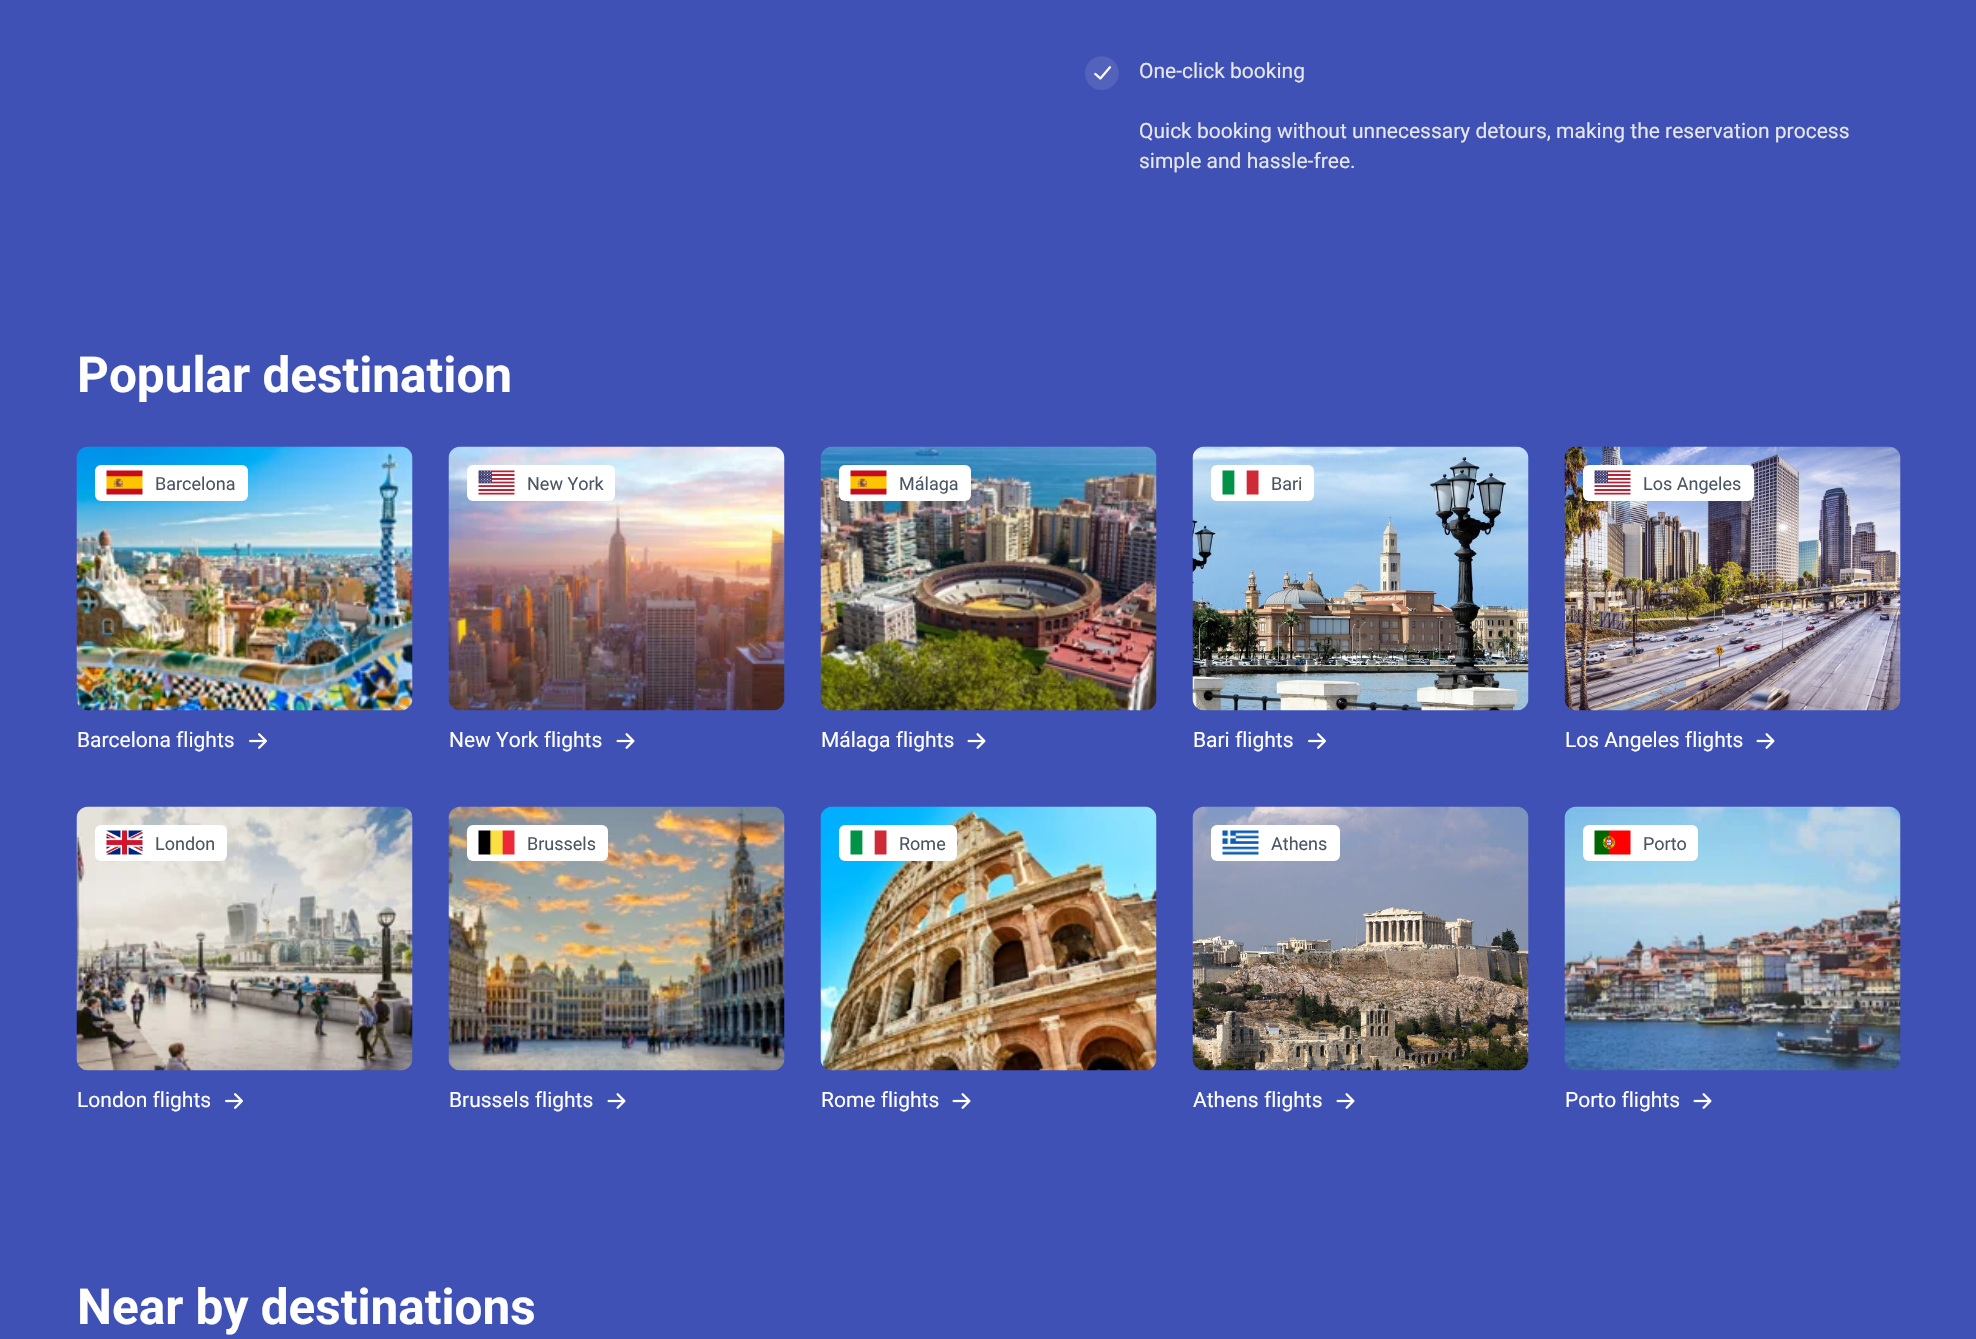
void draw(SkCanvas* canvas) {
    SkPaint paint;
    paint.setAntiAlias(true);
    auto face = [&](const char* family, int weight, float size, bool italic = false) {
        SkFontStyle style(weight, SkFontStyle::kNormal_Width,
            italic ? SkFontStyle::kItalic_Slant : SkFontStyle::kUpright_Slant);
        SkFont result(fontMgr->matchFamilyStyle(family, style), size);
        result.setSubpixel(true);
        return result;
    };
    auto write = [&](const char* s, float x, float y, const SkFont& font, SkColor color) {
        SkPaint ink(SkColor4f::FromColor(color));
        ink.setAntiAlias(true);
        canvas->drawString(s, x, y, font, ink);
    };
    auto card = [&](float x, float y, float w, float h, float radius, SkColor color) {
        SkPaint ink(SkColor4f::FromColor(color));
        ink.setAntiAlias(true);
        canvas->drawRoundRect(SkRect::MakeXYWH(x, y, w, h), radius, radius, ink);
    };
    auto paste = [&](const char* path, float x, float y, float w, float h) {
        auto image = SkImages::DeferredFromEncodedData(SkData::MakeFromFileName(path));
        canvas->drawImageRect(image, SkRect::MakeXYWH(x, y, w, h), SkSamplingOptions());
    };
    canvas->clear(SkColorSetRGB(63, 81, 181));
    paste("pic1.png", 1085, 56, 34, 34);
    auto kFont1 = face("Roboto", 400, 21);
    write("One-click booking", 1139, 78, kFont1, SkColorSetRGB(229, 231, 235));
    write("Quick booking without unnecessary detours, making the reservation process", 1139, 138, kFont1, SkColorSetRGB(229, 231, 235));
    write("simple and hassle-free.", 1139, 168, kFont1, SkColorSetRGB(229, 231, 235));
    auto kFont2 = face("Roboto", 700, 49.5f);
    write("Popular destination", 77, 392, kFont2, SK_ColorWHITE);
    paste("pic2.png", 76, 446, 337, 265);
    card(95, 465, 153, 36, 6, SK_ColorWHITE);
    paste("pic3.png", 106, 470, 37, 25);
    auto kFont3 = face("Roboto", 400, 18);
    write("Barcelona", 155, 490, kFont3, SkColorSetRGB(75, 85, 99));
    write("Barcelona flights", 77, 747, kFont1, SK_ColorWHITE);
    paste("pic4.png", 249, 733, 18, 16);
    paste("pic5.png", 448, 446, 337, 265);
    card(467, 465, 148, 36, 6, SK_ColorWHITE);
    paste("pic6.png", 478, 470, 37, 25);
    write("New York", 527, 490, kFont3, SkColorSetRGB(75, 85, 99));
    write("New York flights", 449, 747, kFont1, SK_ColorWHITE);
    paste("pic7.png", 616, 733, 19, 16);
    paste("pic8.png", 820, 446, 337, 265);
    card(839, 465, 132, 36, 6, SK_ColorWHITE);
    paste("pic3.png", 850, 470, 37, 25);
    write("Málaga", 899, 490, kFont3, SkColorSetRGB(75, 85, 99));
    write("Málaga flights", 821, 747, kFont1, SK_ColorWHITE);
    paste("pic7.png", 967, 733, 19, 16);
    paste("pic9.png", 1192, 446, 337, 265);
    card(1211, 465, 103, 36, 6, SK_ColorWHITE);
    paste("pic10.png", 1222, 470, 37, 25);
    write("Bari", 1271, 490, kFont3, SkColorSetRGB(75, 85, 99));
    write("Bari flights", 1193, 747, kFont1, SK_ColorWHITE);
    paste("pic4.png", 1308, 733, 18, 16);
    paste("pic11.png", 1564, 446, 337, 265);
    card(1583, 465, 171, 36, 6, SK_ColorWHITE);
    paste("pic6.png", 1594, 470, 37, 25);
    write("Los Angeles", 1643, 490, kFont3, SkColorSetRGB(75, 85, 99));
    write("Los Angeles flights", 1565, 747, kFont1, SK_ColorWHITE);
    paste("pic7.png", 1756, 733, 19, 16);
    paste("pic12.png", 76, 806, 337, 265);
    card(95, 825, 132, 36, 6, SK_ColorWHITE);
    paste("pic13.png", 106, 830, 37, 25);
    write("London", 155, 850, kFont3, SkColorSetRGB(75, 85, 99));
    write("London flights", 77, 1107, kFont1, SK_ColorWHITE);
    paste("pic4.png", 225, 1093, 18, 16);
    paste("pic14.png", 448, 806, 337, 265);
    card(467, 825, 141, 36, 6, SK_ColorWHITE);
    paste("pic15.png", 478, 830, 37, 25);
    write("Brussels", 527, 850, kFont3, SkColorSetRGB(75, 85, 99));
    write("Brussels flights", 449, 1107, kFont1, SK_ColorWHITE);
    paste("pic7.png", 607, 1093, 19, 16);
    paste("pic16.png", 820, 806, 337, 265);
    card(839, 825, 118, 36, 6, SK_ColorWHITE);
    paste("pic10.png", 850, 830, 37, 25);
    write("Rome", 899, 850, kFont3, SkColorSetRGB(75, 85, 99));
    write("Rome flights", 821, 1107, kFont1, SK_ColorWHITE);
    paste("pic7.png", 952, 1093, 19, 16);
    paste("pic17.png", 1192, 806, 337, 265);
    card(1211, 825, 129, 36, 6, SK_ColorWHITE);
    paste("pic18.png", 1222, 830, 37, 25);
    write("Athens", 1271, 850, kFont3, SkColorSetRGB(75, 85, 99));
    write("Athens flights", 1193, 1107, kFont1, SK_ColorWHITE);
    paste("pic7.png", 1336, 1093, 19, 16);
    paste("pic19.png", 1564, 806, 337, 265);
    card(1583, 825, 115, 36, 6, SK_ColorWHITE);
    paste("pic20.png", 1594, 830, 37, 25);
    write("Porto", 1643, 850, kFont3, SkColorSetRGB(75, 85, 99));
    write("Porto flights", 1565, 1107, kFont1, SK_ColorWHITE);
    paste("pic7.png", 1693, 1093, 19, 16);
    write("Near by destinations", 77, 1324, kFont2, SK_ColorWHITE);
}
